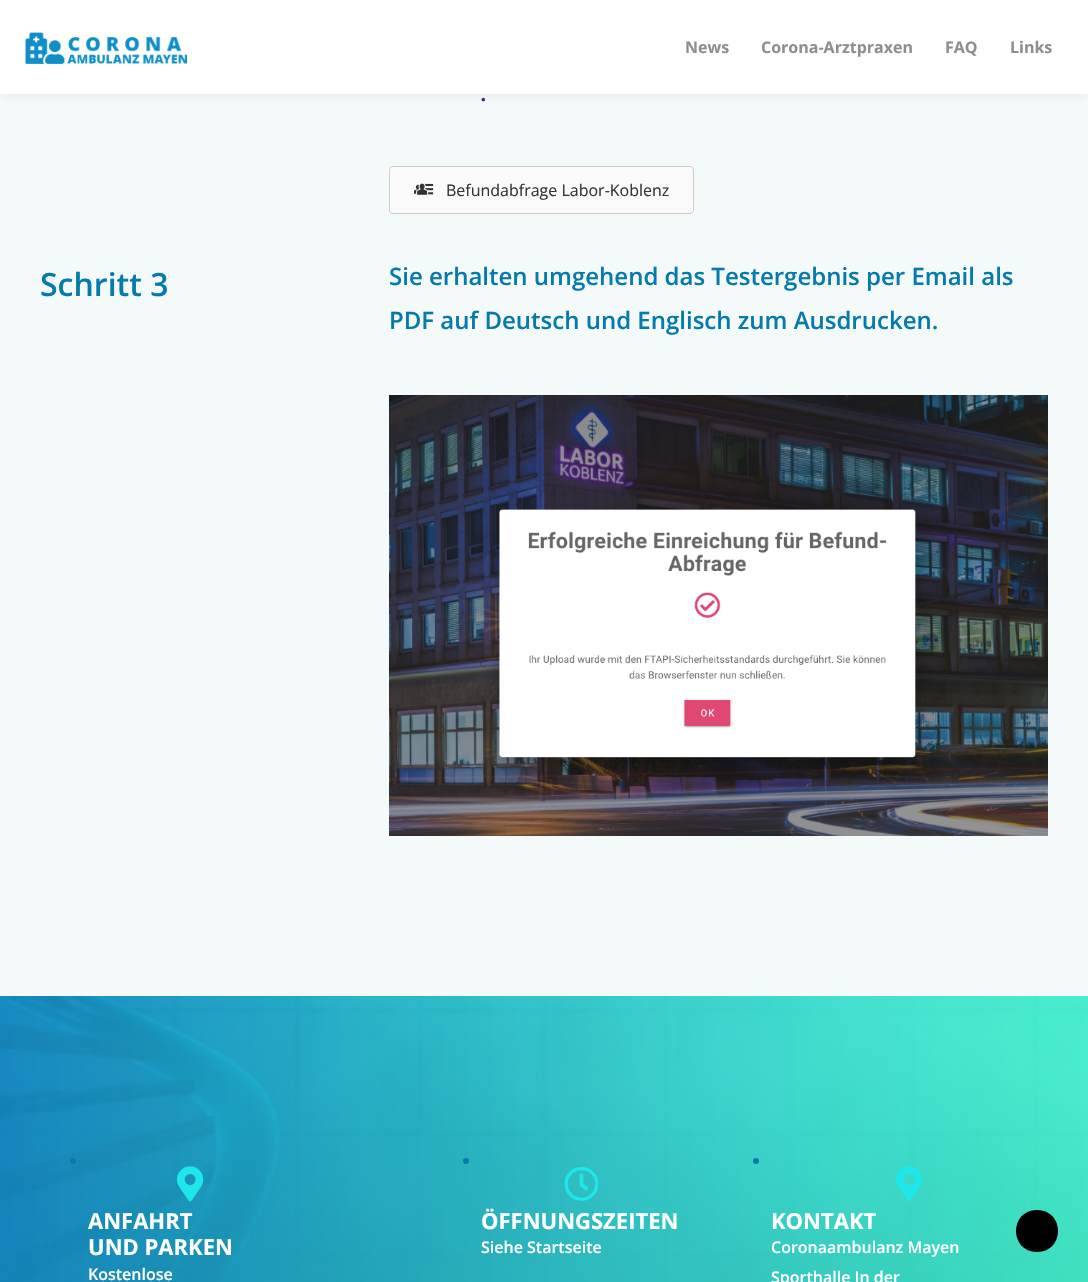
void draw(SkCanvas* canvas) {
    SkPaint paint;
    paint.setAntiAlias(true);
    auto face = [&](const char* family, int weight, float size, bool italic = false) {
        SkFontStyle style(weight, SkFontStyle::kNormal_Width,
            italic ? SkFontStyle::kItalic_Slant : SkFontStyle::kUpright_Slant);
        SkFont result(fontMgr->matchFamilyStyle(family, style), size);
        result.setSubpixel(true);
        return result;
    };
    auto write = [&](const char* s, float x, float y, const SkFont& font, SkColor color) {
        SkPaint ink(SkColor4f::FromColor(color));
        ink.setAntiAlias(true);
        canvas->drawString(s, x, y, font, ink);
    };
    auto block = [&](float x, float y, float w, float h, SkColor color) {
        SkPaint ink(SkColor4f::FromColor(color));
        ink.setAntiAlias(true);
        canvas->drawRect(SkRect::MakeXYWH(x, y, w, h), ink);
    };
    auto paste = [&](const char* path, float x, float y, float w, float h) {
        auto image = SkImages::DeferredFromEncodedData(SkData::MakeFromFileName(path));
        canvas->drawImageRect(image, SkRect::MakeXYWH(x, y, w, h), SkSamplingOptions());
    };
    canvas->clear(SkColorSetRGB(244, 249, 249));
    paint.setColor(SkColorSetARGB(18, 36, 50, 66));
    paint.setMaskFilter(SkMaskFilter::MakeBlur(kNormal_SkBlurStyle, 5));
    canvas->drawRect(SkRect::MakeXYWH(0, 2, 1088, 94), paint);
    paint.setMaskFilter(nullptr);
    block(0, 0, 1088, 94, SK_ColorWHITE);
    paste("pic1.png", 25, 32, 162, 32);
    auto kFont1 = face("Open Sans", 700, 16);
    write("News", 685, 53, kFont1, SkColorSetRGB(142, 142, 142));
    write("Corona-Arztpraxen", 761, 53, kFont1, SkColorSetRGB(142, 142, 142));
    write("FAQ", 945, 53, kFont1, SkColorSetRGB(142, 142, 142));
    write("Links", 1010, 53, kFont1, SkColorSetRGB(142, 142, 142));
    auto kFont2 = face("Open Sans", 600, 24);
    write(".", 480, 101, kFont2, SkColorSetRGB(51, 51, 153));
    paint.setColor(SkColorSetRGB(250, 250, 250));
    canvas->drawRoundRect(SkRect::MakeXYWH(389.5f, 166.5f, 304, 47), 3.5f, 3.5f, paint);
    paint.setStyle(SkPaint::kStroke_Style);
    paint.setStrokeWidth(1);
    paint.setColor(SkColorSetRGB(204, 204, 204));
    canvas->drawRoundRect(SkRect::MakeXYWH(389.5f, 166.5f, 304, 47), 3.5f, 3.5f, paint);
    paste("pic2.png", 414, 183, 20, 12);
    auto kFont3 = face("Open Sans", 400, 16);
    write("Befundabfrage Labor-Koblenz", 446, 196, kFont3, SkColorSetRGB(51, 51, 51));
    auto kFont4 = face("Open Sans", 600, 32);
    write("Schritt 3", 40, 296, kFont4, SkColorSetRGB(5, 122, 173));
    write("Sie erhalten umgehend das Testergebnis per Email als", 389, 285, kFont2, SkColorSetRGB(5, 122, 173));
    write("PDF auf Deutsch und Englisch zum Ausdrucken.", 389, 329, kFont2, SkColorSetRGB(5, 122, 173));
    paste("pic3.png", 389, 395, 659, 441);
    paste("pic4.png", 0, 996, 1088, 286);
    paint.setStyle(SkPaint::kFill_Style);
    paint.setColor(SkColorSetRGB(5, 122, 173));
    canvas->drawCircle(73, 1161, 3, paint);
    paste("pic5.png", 177, 1166, 27, 36);
    auto kFont5 = face("Open Sans", 700, 22);
    write("ANFAHRT", 88, 1229, kFont5, SK_ColorWHITE);
    write("UND PARKEN", 88, 1255, kFont5, SK_ColorWHITE);
    auto kFont6 = face("Open Sans", 600, 16);
    write("Kostenlose", 88, 1280, kFont6, SK_ColorWHITE);
    canvas->drawCircle(466, 1161, 3, paint);
    paste("pic6.png", 564, 1167, 35, 34);
    write("ÖFFNUNGSZEITEN", 481, 1229, kFont5, SK_ColorWHITE);
    write("Siehe Startseite", 481, 1253, kFont6, SK_ColorWHITE);
    canvas->drawCircle(756, 1161, 3, paint);
    paste("pic7.png", 896, 1166, 27, 36);
    write("KONTAKT", 771, 1229, kFont5, SK_ColorWHITE);
    write("Coronaambulanz Mayen", 771, 1253, kFont6, SK_ColorWHITE);
    write("Sporthalle In der", 771, 1283, kFont6, SK_ColorWHITE);
    paint.setColor(SK_ColorBLACK);
    canvas->drawPath(SkPathBuilder().moveTo(1037, 1252).cubicTo(1009, 1252, 1009, 1210, 1037, 1210).cubicTo(1065, 1210, 1065, 1252, 1037, 1252).close().detach(), paint);
}
